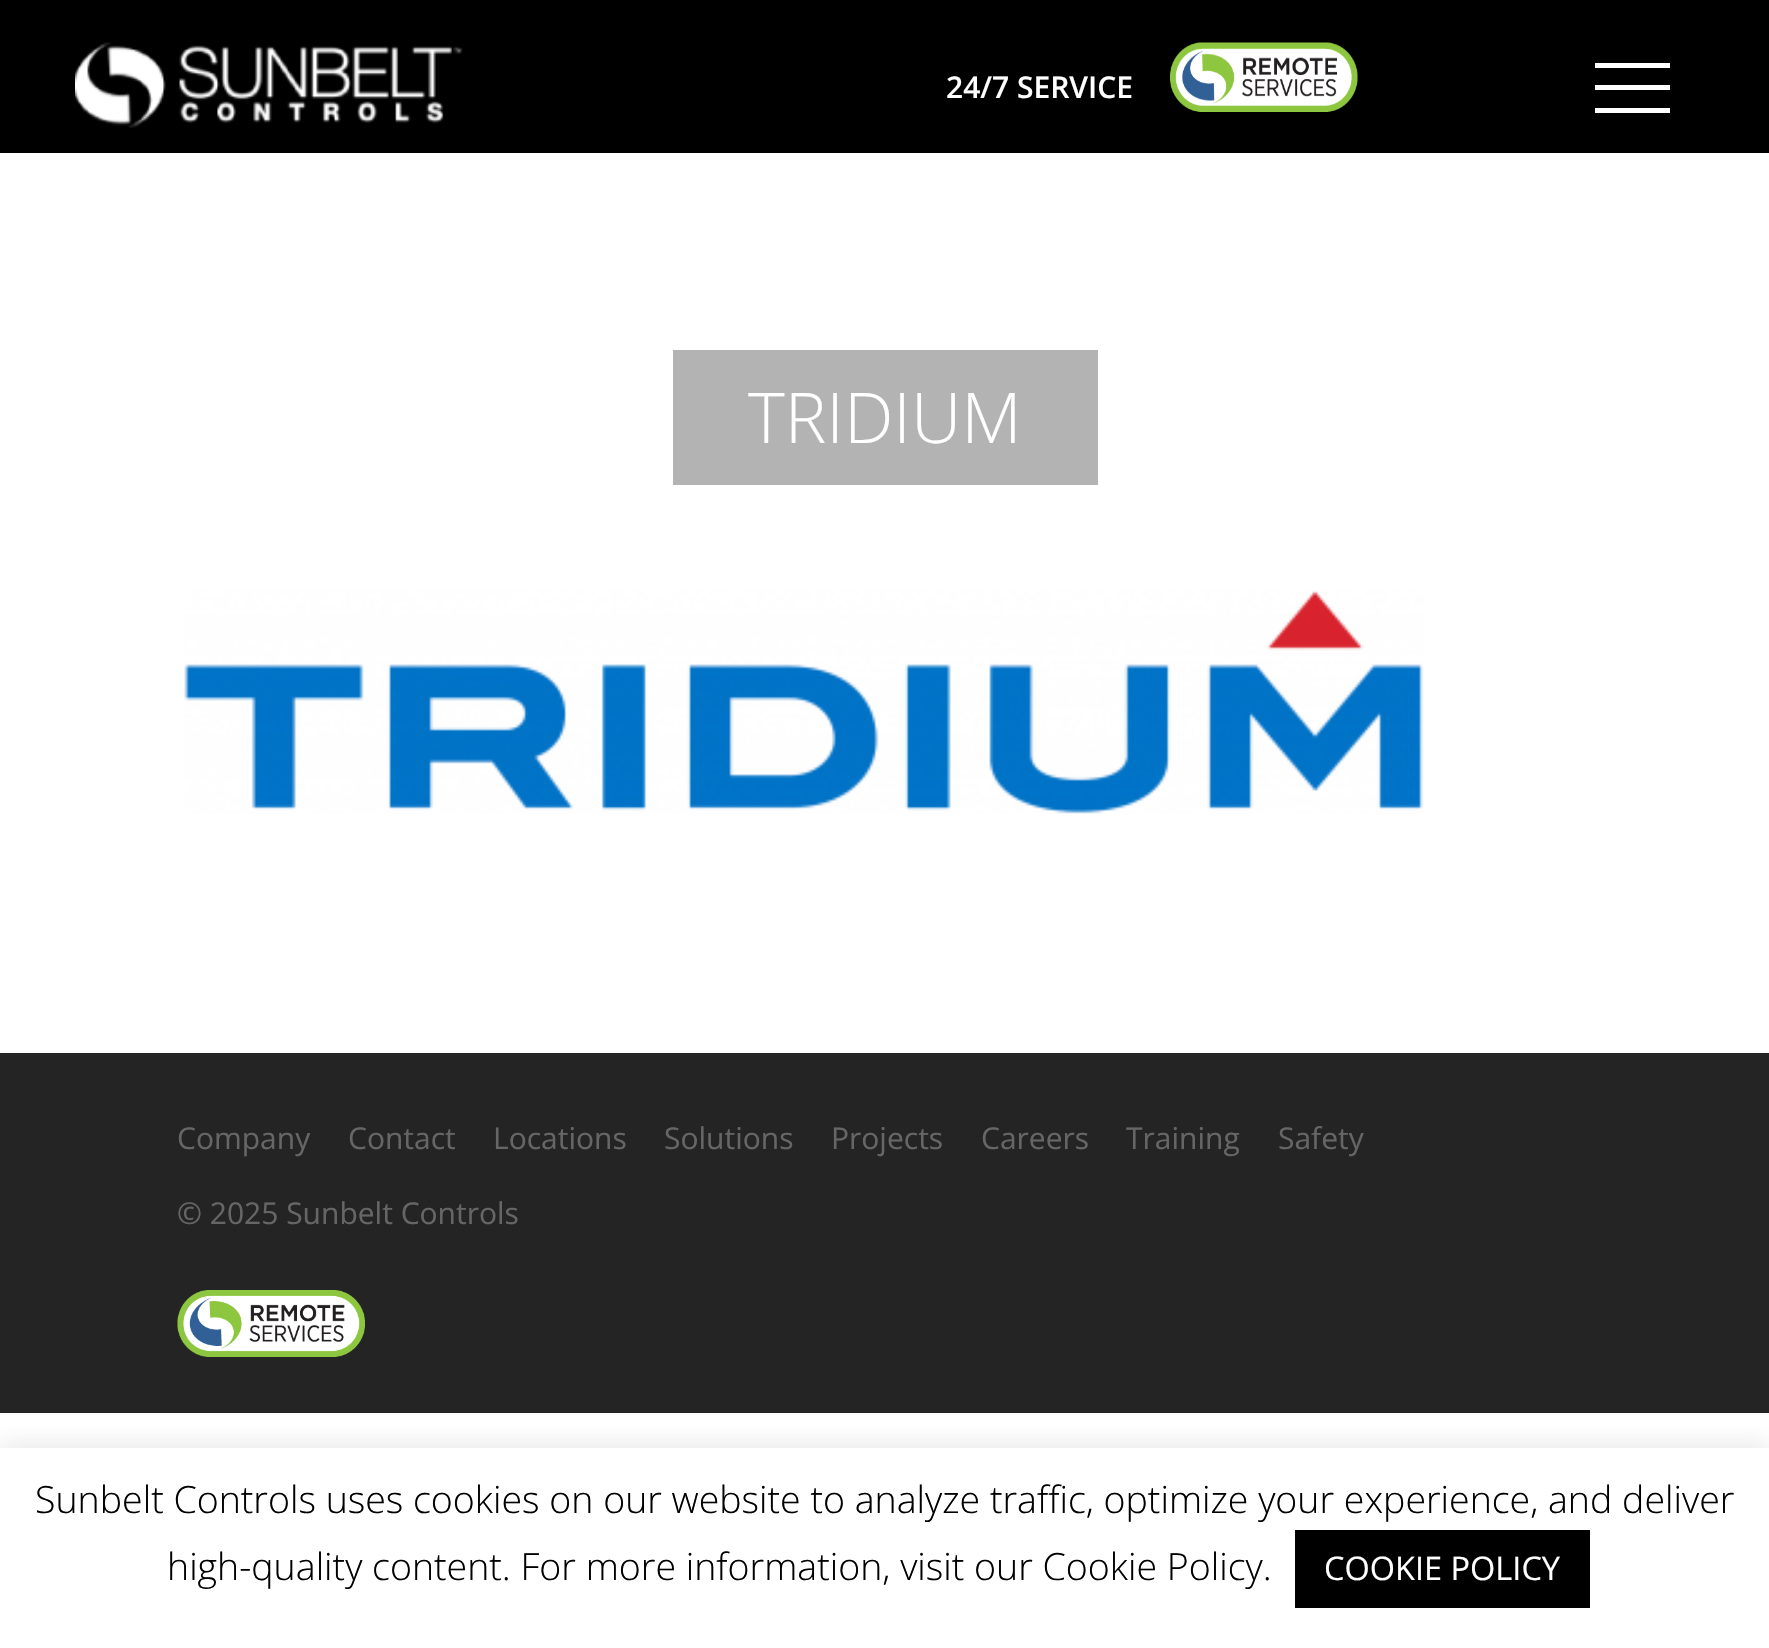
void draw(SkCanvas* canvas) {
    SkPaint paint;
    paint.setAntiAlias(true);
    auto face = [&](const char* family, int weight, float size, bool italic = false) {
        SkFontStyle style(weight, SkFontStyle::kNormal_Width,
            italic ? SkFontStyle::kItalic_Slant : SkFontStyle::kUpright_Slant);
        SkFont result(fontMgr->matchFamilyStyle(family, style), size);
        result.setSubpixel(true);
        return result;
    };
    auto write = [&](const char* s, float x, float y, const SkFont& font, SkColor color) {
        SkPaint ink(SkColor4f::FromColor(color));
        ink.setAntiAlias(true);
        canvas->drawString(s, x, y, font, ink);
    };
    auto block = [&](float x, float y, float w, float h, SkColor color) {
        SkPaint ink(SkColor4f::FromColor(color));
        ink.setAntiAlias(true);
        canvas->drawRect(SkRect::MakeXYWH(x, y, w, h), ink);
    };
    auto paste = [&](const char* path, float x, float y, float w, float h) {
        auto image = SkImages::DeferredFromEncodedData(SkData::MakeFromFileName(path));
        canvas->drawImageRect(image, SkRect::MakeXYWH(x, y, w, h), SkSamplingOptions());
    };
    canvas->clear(SK_ColorWHITE);
    block(0, 0, 1769, 153, SK_ColorBLACK);
    paste("pic1.png", 75, 42, 388, 86);
    auto kFont1 = face("Open Sans", 600, 30);
    write("24/7 SERVICE", 946, 98, kFont1, SK_ColorWHITE);
    paste("pic2.png", 1170, 42, 188, 70);
    block(1595, 85, 75, 5, SK_ColorWHITE);
    block(1595, 63, 75, 5, SK_ColorWHITE);
    block(1595, 108, 75, 5, SK_ColorWHITE);
    block(673, 350, 425, 135, SkColorSetRGB(179, 179, 179));
    auto kFont2 = face("Open Sans", 300, 70);
    write("TRIDIUM", 748, 443, kFont2, SK_ColorWHITE);
    paste("pic3.png", 184, 590, 1240, 224);
    block(0, 1053, 1769, 360, SkColorSetRGB(36, 36, 36));
    auto kFont3 = face("Open Sans", 400, 30);
    write("Company", 177, 1149, kFont3, SkColorSetRGB(102, 102, 102));
    write("Contact", 348, 1149, kFont3, SkColorSetRGB(102, 102, 102));
    write("Locations", 493, 1149, kFont3, SkColorSetRGB(102, 102, 102));
    write("Solutions", 664, 1149, kFont3, SkColorSetRGB(102, 102, 102));
    write("Projects", 831, 1149, kFont3, SkColorSetRGB(102, 102, 102));
    write("Careers", 981, 1149, kFont3, SkColorSetRGB(102, 102, 102));
    write("Training", 1126, 1149, kFont3, SkColorSetRGB(102, 102, 102));
    write("Safety", 1278, 1149, kFont3, SkColorSetRGB(102, 102, 102));
    write("© 2025 Sunbelt Controls", 177, 1224, kFont3, SkColorSetRGB(102, 102, 102));
    paste("pic4.png", 177, 1290, 188, 67);
    canvas->save();
    canvas->clipRect(SkRect::MakeXYWH(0, 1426, 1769, 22));
    paint.setColor(SkColorSetARGB(77, 172, 171, 171));
    paint.setMaskFilter(SkMaskFilter::MakeBlur(kNormal_SkBlurStyle, 12.5f));
    canvas->drawRect(SkRect::MakeXYWH(0, 1445, 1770, 203), paint);
    paint.setMaskFilter(nullptr);
    canvas->restore();
    auto kFont4 = face("Open Sans", 300, 37.5f);
    write("Sunbelt Controls uses cookies on our website to analyze traffic, optimize your experience, and deliver", 35, 1513, kFont4, SK_ColorBLACK);
    write("high-quality content. For more information, visit our Cookie Policy.", 167, 1580, kFont4, SK_ColorBLACK);
    block(1295, 1530, 295, 78, SK_ColorBLACK);
    auto kFont5 = face("Open Sans", 400, 32.5f);
    write("COOKIE POLICY", 1324, 1580, kFont5, SK_ColorWHITE);
}
